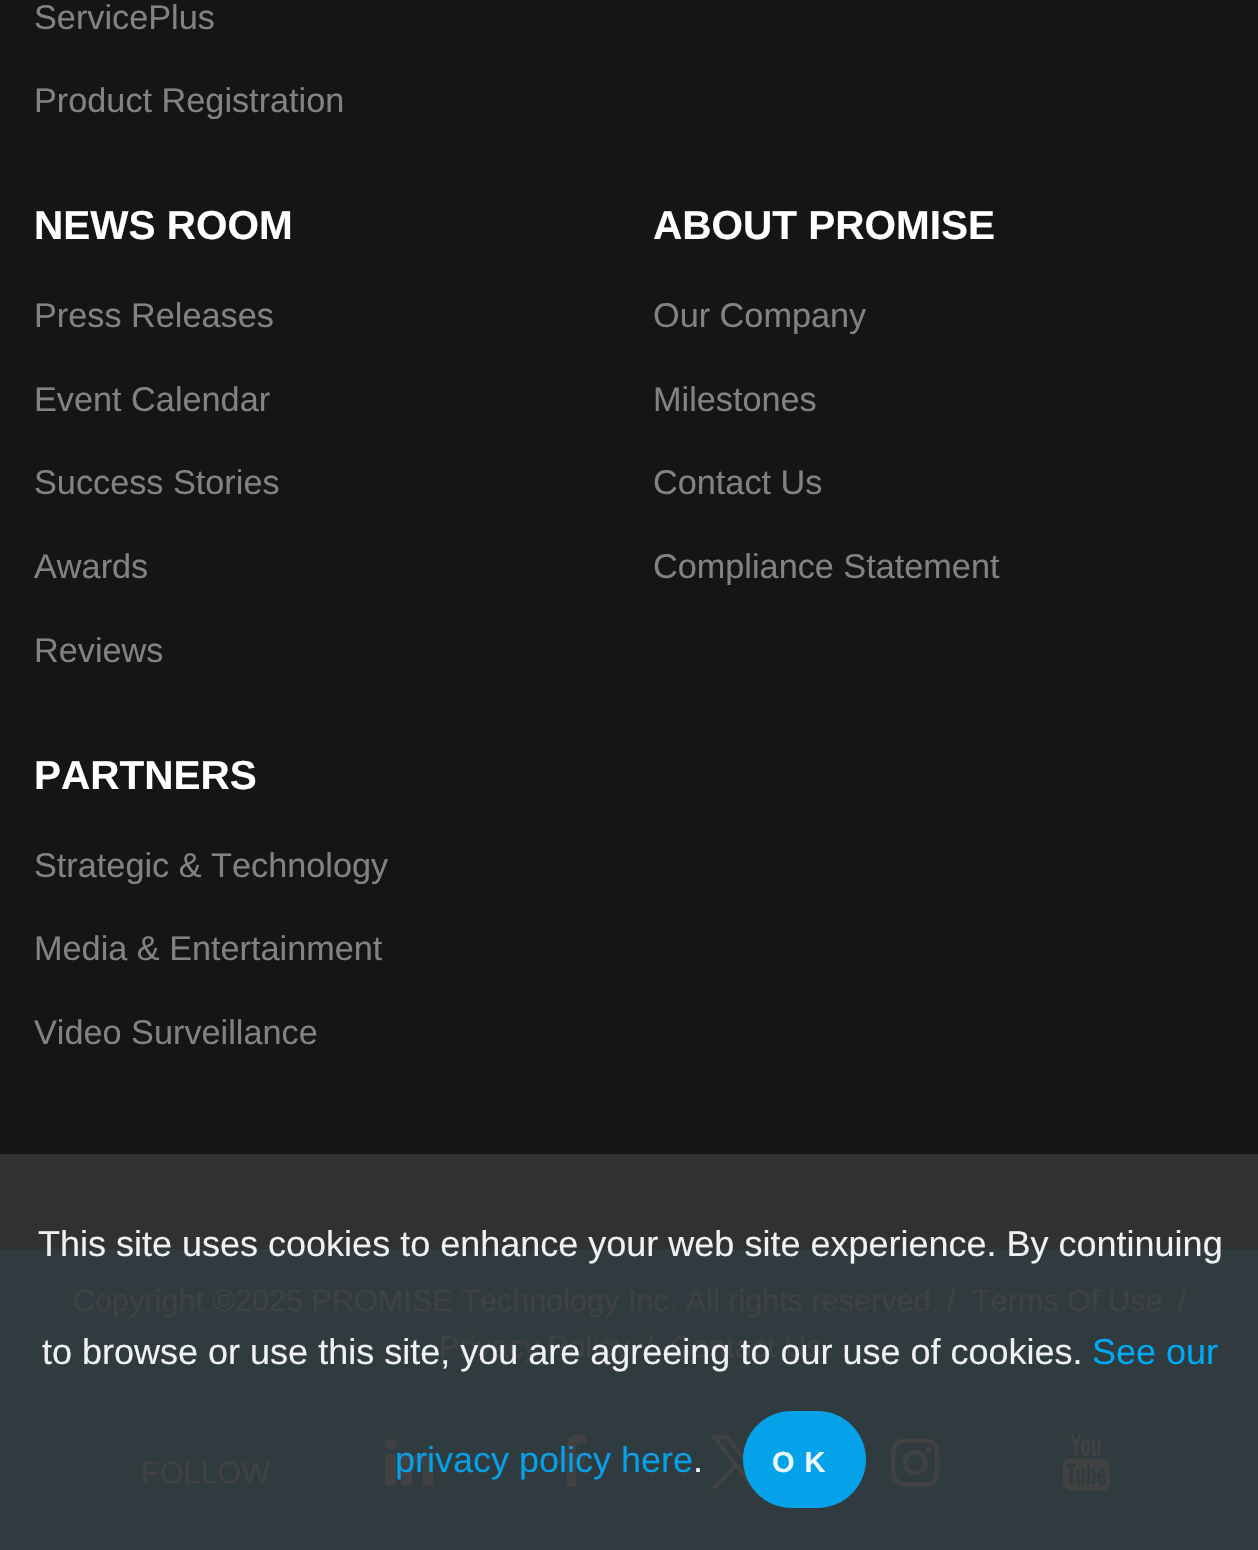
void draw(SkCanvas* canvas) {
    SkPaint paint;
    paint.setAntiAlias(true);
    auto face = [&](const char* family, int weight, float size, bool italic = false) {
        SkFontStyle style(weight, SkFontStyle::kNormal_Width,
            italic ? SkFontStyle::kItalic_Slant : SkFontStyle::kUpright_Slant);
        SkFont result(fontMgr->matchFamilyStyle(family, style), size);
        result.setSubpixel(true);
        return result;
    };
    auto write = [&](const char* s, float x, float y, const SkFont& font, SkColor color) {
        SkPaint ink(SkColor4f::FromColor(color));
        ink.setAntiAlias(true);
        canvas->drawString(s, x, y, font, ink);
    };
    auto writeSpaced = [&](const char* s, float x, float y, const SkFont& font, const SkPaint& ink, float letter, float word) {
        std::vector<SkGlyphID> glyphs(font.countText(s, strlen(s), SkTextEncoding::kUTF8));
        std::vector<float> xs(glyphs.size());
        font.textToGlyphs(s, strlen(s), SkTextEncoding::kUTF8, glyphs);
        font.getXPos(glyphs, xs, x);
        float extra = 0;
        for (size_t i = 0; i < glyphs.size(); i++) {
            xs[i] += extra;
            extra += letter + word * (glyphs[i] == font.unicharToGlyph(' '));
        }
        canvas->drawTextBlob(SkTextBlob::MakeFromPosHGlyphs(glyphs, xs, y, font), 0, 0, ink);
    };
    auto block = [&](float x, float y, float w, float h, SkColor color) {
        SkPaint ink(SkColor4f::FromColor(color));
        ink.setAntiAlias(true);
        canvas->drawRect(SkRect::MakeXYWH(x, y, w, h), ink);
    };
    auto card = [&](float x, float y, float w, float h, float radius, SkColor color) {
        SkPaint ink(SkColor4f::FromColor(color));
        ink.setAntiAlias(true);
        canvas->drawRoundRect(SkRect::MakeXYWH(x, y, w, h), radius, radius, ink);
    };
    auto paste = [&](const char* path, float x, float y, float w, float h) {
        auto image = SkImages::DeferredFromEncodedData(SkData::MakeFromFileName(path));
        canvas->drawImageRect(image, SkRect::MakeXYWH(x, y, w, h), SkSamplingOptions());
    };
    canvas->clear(SkColorSetRGB(21, 21, 21));
    block(0, 1154, 1258, 95, SkColorSetRGB(49, 49, 49));
    auto kFont1 = face("Liberation Sans", 400, 34.25f);
    write("ServicePlus", 34, 29, kFont1, SkColorSetRGB(128, 130, 133));
    write("Product Registration", 34, 112, kFont1, SkColorSetRGB(128, 130, 133));
    auto kFont2 = face("Liberation Sans", 700, 40.5f);
    write("NEWS ROOM", 34, 239, kFont2, SK_ColorWHITE);
    write("Press Releases", 34, 327, kFont1, SkColorSetRGB(128, 130, 133));
    write("Event Calendar", 34, 411, kFont1, SkColorSetRGB(128, 130, 133));
    write("Success Stories", 34, 494, kFont1, SkColorSetRGB(128, 130, 133));
    write("Awards", 34, 578, kFont1, SkColorSetRGB(128, 130, 133));
    write("Reviews", 34, 662, kFont1, SkColorSetRGB(128, 130, 133));
    write("ABOUT PROMISE", 653, 239, kFont2, SK_ColorWHITE);
    write("Our Company", 653, 327, kFont1, SkColorSetRGB(128, 130, 133));
    write("Milestones", 653, 411, kFont1, SkColorSetRGB(128, 130, 133));
    write("Contact Us", 653, 494, kFont1, SkColorSetRGB(128, 130, 133));
    write("Compliance Statement", 653, 578, kFont1, SkColorSetRGB(128, 130, 133));
    write("PARTNERS", 34, 789, kFont2, SK_ColorWHITE);
    write("Strategic & Technology", 34, 877, kFont1, SkColorSetRGB(128, 130, 133));
    write("Media & Entertainment", 34, 960, kFont1, SkColorSetRGB(128, 130, 133));
    write("Video Surveillance", 34, 1044, kFont1, SkColorSetRGB(128, 130, 133));
    block(0, 1249, 1258, 301, SkColorSetRGB(48, 59, 64));
    auto kFont3 = face("Liberation Sans", 400, 30.6f);
    write("Copyright ©2025 PROMISE Technology Inc. All rights reserved.", 73, 1311, kFont3, SkColorSetRGB(65, 65, 65));
    write("/", 947, 1311, kFont3, SkColorSetRGB(65, 65, 65));
    write("Terms Of Use", 972, 1311, kFont3, SkColorSetRGB(65, 65, 65));
    write("/", 1178, 1311, kFont3, SkColorSetRGB(65, 65, 65));
    write("Privacy Policy", 439, 1357, kFont3, SkColorSetRGB(65, 65, 65));
    write("/", 645, 1357, kFont3, SkColorSetRGB(65, 65, 65));
    write("Contact Us", 670, 1357, kFont3, SkColorSetRGB(65, 65, 65));
    write("FOLLOW", 141, 1483, kFont3, SkColorSetRGB(65, 65, 65));
    paste("pic1.png", 384, 1438, 50, 48);
    paint.setColor(SkColorSetRGB(65, 65, 65));
    canvas->drawPath(SkPathBuilder().moveTo(586, 1435).lineTo(586, 1443).cubicTo(576, 1443, 576, 1443, 576, 1453).lineTo(586, 1453).lineTo(584, 1463).lineTo(576, 1463).lineTo(576, 1487).lineTo(567, 1487).lineTo(567, 1463).lineTo(559, 1463).lineTo(559, 1453).lineTo(567, 1453).lineTo(567, 1444).cubicTo(569, 1434, 578, 1433, 586, 1435).close().detach(), paint);
    paste("pic2.png", 711, 1434, 59, 56);
    paste("pic3.png", 891, 1438, 49, 49);
    paste("pic4.png", 1062, 1434, 48, 57);
    auto kFont4 = face("Liberation Sans", 400, 36);
    write("This site uses cookies to enhance your web site experience. By continuing", 38, 1256, kFont4, SkColorSetRGB(241, 241, 241));
    write("to browse or use this site, you are agreeing to our use of cookies.", 42, 1364, kFont4, SkColorSetRGB(241, 241, 241));
    write("See our", 1092, 1364, kFont4, SkColorSetRGB(0, 169, 244));
    write("privacy policy here", 395, 1472, kFont4, SkColorSetRGB(4, 161, 232));
    write(".", 693, 1472, kFont4, SkColorSetRGB(237, 249, 254));
    card(743, 1411, 123, 97, 48.5f, SkColorSetARGB(237, 0, 169, 245));
    auto kFont5 = face("Liberation Sans", 700, 29);
    paint.setColor(SkColorSetRGB(237, 249, 254));
    writeSpaced("OK", 772, 1472, kFont5, paint, 10, 0);
}
